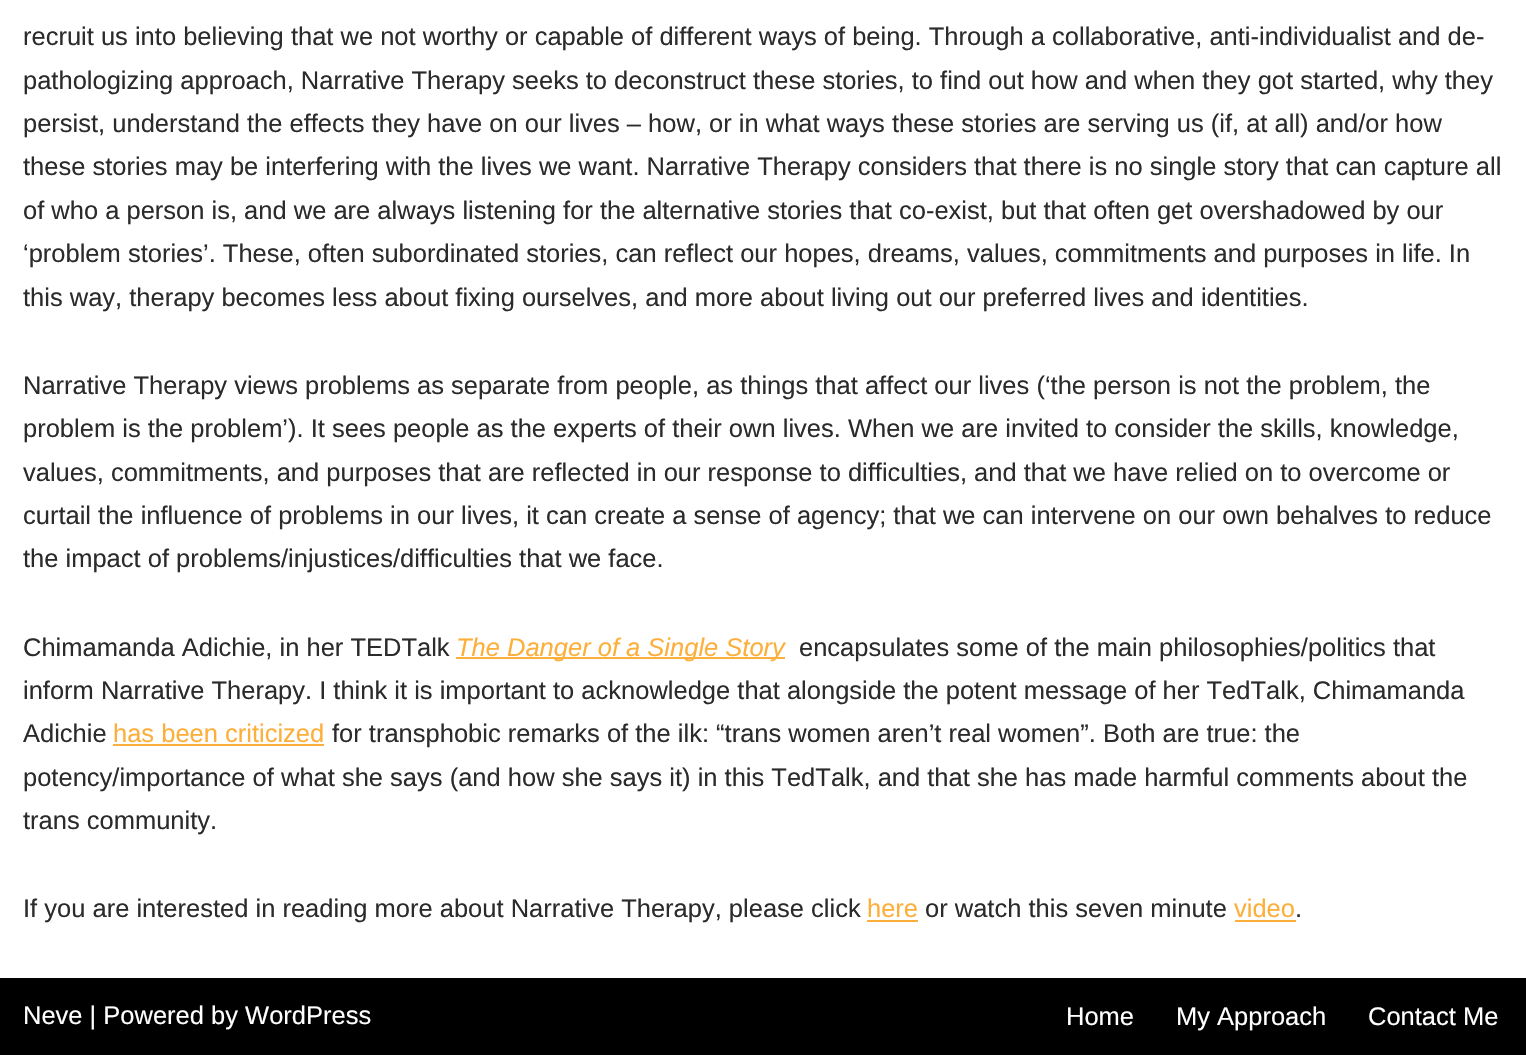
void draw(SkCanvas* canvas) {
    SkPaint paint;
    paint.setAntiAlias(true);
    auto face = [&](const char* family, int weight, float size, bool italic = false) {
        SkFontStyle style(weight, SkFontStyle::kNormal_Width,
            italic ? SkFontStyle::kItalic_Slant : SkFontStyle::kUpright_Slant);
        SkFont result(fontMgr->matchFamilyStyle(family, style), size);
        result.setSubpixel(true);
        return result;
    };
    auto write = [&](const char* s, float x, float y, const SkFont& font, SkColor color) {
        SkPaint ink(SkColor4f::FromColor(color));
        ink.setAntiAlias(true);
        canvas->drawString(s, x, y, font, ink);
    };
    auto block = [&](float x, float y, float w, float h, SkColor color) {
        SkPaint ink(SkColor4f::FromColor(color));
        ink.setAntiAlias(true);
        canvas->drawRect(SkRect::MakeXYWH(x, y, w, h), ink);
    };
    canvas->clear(SK_ColorWHITE);
    auto kFont1 = face("Liberation Sans", 400, 25.5f);
    write("recruit us into believing that we not worthy or capable of different ways of being. Through a collaborative, anti-individualist and de-", 23, 45, kFont1, SkColorSetRGB(43, 43, 43));
    write("pathologizing approach, Narrative Therapy seeks to deconstruct these stories, to find out how and when they got started, why they", 23, 89, kFont1, SkColorSetRGB(43, 43, 43));
    write("persist, understand the effects they have on our lives – how, or in what ways these stories are serving us (if, at all) and/or how", 23, 132, kFont1, SkColorSetRGB(43, 43, 43));
    write("these stories may be interfering with the lives we want. Narrative Therapy considers that there is no single story that can capture all", 23, 175, kFont1, SkColorSetRGB(43, 43, 43));
    write("of who a person is, and we are always listening for the alternative stories that co-exist, but that often get overshadowed by our", 23, 219, kFont1, SkColorSetRGB(43, 43, 43));
    write("‘problem stories’. These, often subordinated stories, can reflect our hopes, dreams, values, commitments and purposes in life. In", 23, 262, kFont1, SkColorSetRGB(43, 43, 43));
    write("this way, therapy becomes less about fixing ourselves, and more about living out our preferred lives and identities.", 23, 306, kFont1, SkColorSetRGB(43, 43, 43));
    write("Narrative Therapy views problems as separate from people, as things that affect our lives (‘the person is not the problem, the", 23, 394, kFont1, SkColorSetRGB(43, 43, 43));
    write("problem is the problem’). It sees people as the experts of their own lives. When we are invited to consider the skills, knowledge,", 23, 437, kFont1, SkColorSetRGB(43, 43, 43));
    write("values, commitments, and purposes that are reflected in our response to difficulties, and that we have relied on to overcome or", 23, 481, kFont1, SkColorSetRGB(43, 43, 43));
    write("curtail the influence of problems in our lives, it can create a sense of agency; that we can intervene on our own behalves to reduce", 23, 524, kFont1, SkColorSetRGB(43, 43, 43));
    write("the impact of problems/injustices/difficulties that we face.", 23, 567, kFont1, SkColorSetRGB(43, 43, 43));
    write("Chimamanda Adichie, in her TEDTalk", 23, 656, kFont1, SkColorSetRGB(43, 43, 43));
    block(456, 657, 329, 2, SkColorSetRGB(252, 175, 59));
    auto kFont2 = face("Liberation Sans", 400, 25.5f, true);
    write("The Danger of a Single Story", 456, 656, kFont2, SkColorSetRGB(252, 175, 59));
    write("encapsulates some of the main philosophies/politics that", 799, 656, kFont1, SkColorSetRGB(43, 43, 43));
    write("inform Narrative Therapy. I think it is important to acknowledge that alongside the potent message of her TedTalk, Chimamanda", 23, 699, kFont1, SkColorSetRGB(43, 43, 43));
    write("Adichie", 23, 742, kFont1, SkColorSetRGB(43, 43, 43));
    write("has been criticized", 113, 742, kFont1, SkColorSetRGB(252, 175, 59));
    block(113, 744, 211, 2, SkColorSetRGB(252, 175, 59));
    write("for transphobic remarks of the ilk: “trans women aren’t real women”. Both are true: the", 332, 742, kFont1, SkColorSetRGB(43, 43, 43));
    write("potency/importance of what she says (and how she says it) in this TedTalk, and that she has made harmful comments about the", 23, 786, kFont1, SkColorSetRGB(43, 43, 43));
    write("trans community.", 23, 829, kFont1, SkColorSetRGB(43, 43, 43));
    write("If you are interested in reading more about Narrative Therapy, please click", 23, 917, kFont1, SkColorSetRGB(43, 43, 43));
    write("here", 867, 917, kFont1, SkColorSetRGB(252, 175, 59));
    block(867, 920, 51, 2, SkColorSetRGB(252, 175, 59));
    write("or watch this seven minute", 925, 917, kFont1, SkColorSetRGB(43, 43, 43));
    write("video", 1234, 917, kFont1, SkColorSetRGB(252, 175, 59));
    block(1235, 920, 61, 2, SkColorSetRGB(252, 175, 59));
    write(".", 1295, 917, kFont1, SkColorSetRGB(43, 43, 43));
    block(0, 978, 1526, 77, SK_ColorBLACK);
    write("Neve | Powered by WordPress", 23, 1024, kFont1, SK_ColorWHITE);
    write("Home", 1066, 1025, kFont1, SK_ColorWHITE);
    write("My Approach", 1176, 1025, kFont1, SK_ColorWHITE);
    write("Contact Me", 1368, 1025, kFont1, SK_ColorWHITE);
}
